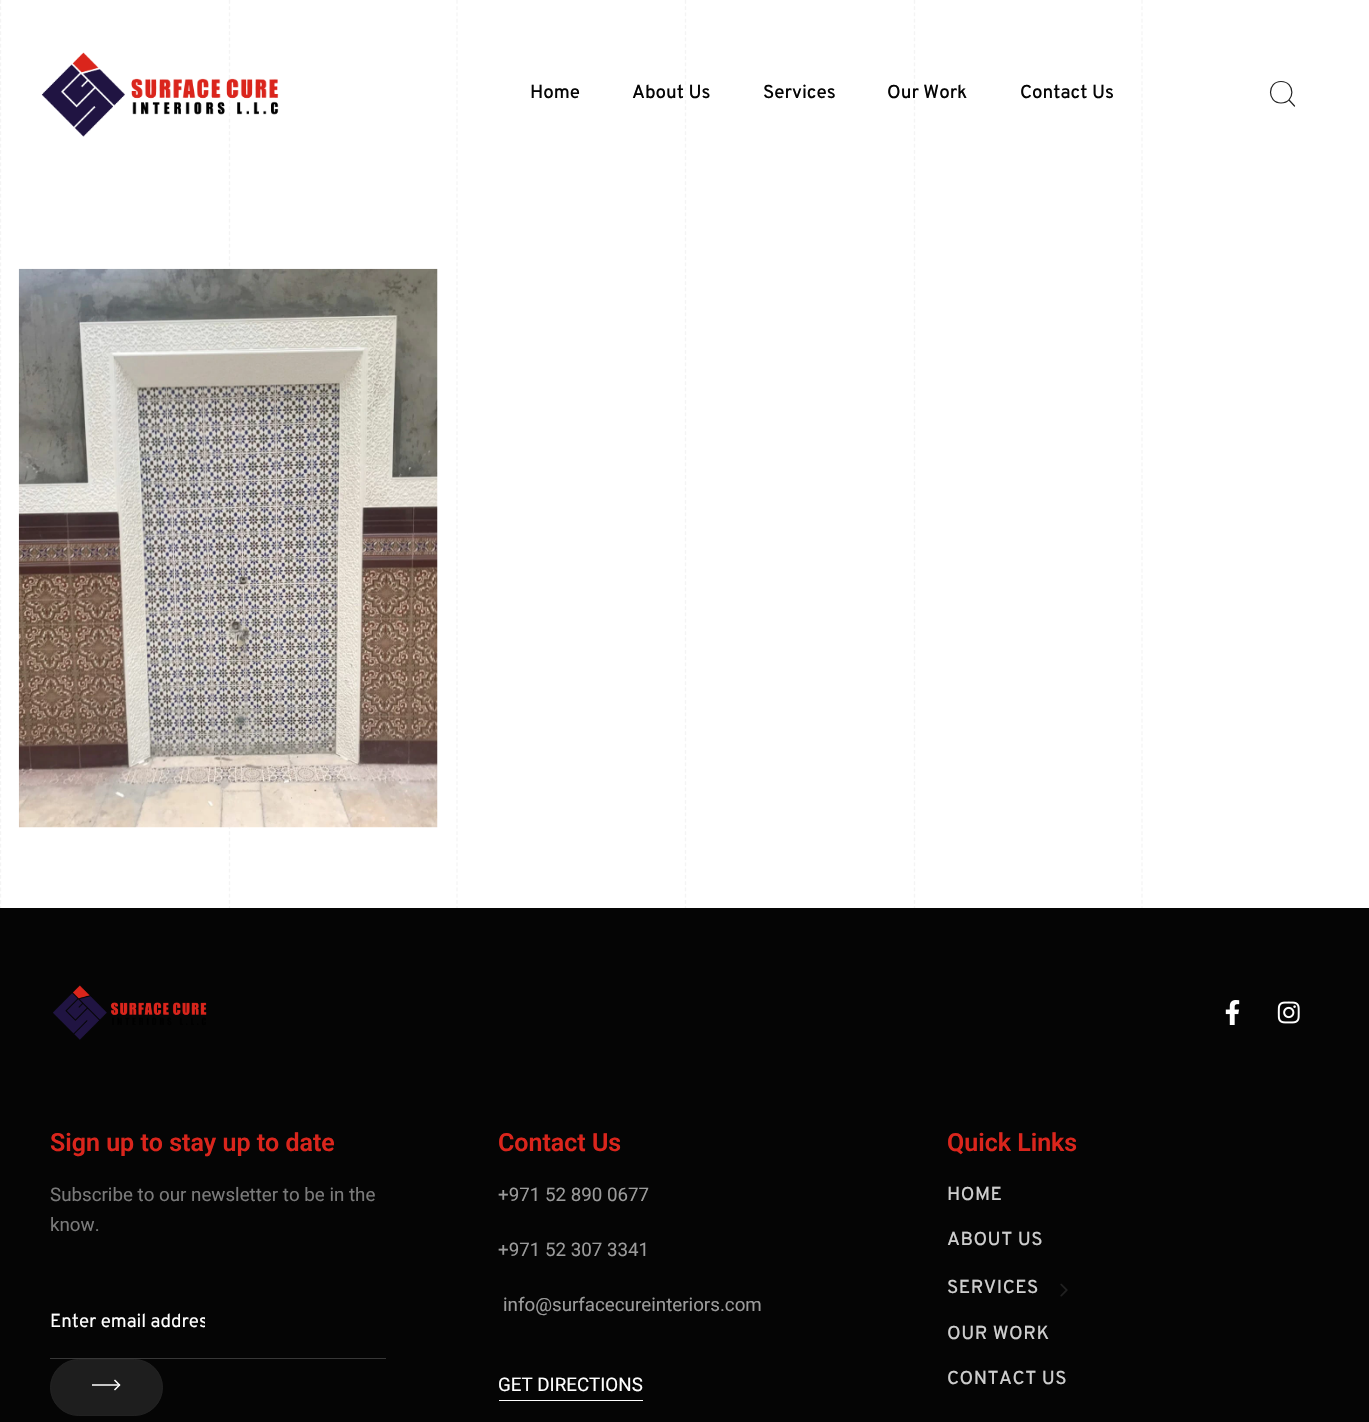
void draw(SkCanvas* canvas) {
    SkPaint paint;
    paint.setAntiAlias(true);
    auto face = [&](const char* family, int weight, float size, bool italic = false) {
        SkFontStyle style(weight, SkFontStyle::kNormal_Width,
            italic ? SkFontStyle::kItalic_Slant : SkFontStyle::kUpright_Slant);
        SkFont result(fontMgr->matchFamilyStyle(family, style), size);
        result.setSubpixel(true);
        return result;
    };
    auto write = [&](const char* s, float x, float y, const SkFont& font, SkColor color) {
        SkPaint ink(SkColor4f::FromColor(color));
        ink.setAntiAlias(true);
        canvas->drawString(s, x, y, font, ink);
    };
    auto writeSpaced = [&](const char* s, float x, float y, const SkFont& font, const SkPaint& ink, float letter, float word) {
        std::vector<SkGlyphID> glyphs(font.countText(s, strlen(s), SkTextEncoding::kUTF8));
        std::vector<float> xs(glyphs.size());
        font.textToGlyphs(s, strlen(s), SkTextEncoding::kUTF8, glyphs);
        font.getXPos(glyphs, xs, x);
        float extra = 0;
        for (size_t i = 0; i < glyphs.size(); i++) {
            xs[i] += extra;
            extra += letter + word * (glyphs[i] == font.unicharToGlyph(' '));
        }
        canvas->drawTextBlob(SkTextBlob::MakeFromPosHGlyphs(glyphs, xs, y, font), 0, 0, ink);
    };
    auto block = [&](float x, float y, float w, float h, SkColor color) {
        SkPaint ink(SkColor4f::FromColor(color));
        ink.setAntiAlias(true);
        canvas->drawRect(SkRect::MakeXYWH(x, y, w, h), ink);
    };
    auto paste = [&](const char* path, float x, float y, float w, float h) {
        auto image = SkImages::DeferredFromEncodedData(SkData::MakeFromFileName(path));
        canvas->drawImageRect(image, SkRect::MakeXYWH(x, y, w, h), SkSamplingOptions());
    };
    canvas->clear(SK_ColorWHITE);
    paint.setStyle(SkPaint::kStroke_Style);
    paint.setStrokeWidth(1.2f);
    paint.setColor(SkColorSetRGB(244, 244, 244));
    paint.setPathEffect(SkDashPathEffect::Make({{3.75f, 2.5f}}, 0));
    canvas->drawPath(SkPathBuilder().moveTo(0.5f, 0).lineTo(0.5f, 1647.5f).detach(), paint);
    paint.setPathEffect(nullptr);
    paint.setPathEffect(SkDashPathEffect::Make({{3.75f, 2.5f}}, 0));
    canvas->drawPath(SkPathBuilder().moveTo(229.5f, 0).lineTo(229.5f, 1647.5f).detach(), paint);
    paint.setPathEffect(nullptr);
    paint.setPathEffect(SkDashPathEffect::Make({{3.75f, 2.5f}}, 0));
    canvas->drawPath(SkPathBuilder().moveTo(457, 0).lineTo(457, 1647.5f).detach(), paint);
    paint.setPathEffect(nullptr);
    paint.setPathEffect(SkDashPathEffect::Make({{3.75f, 2.5f}}, 0));
    canvas->drawPath(SkPathBuilder().moveTo(685.5f, 0).lineTo(685.5f, 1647.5f).detach(), paint);
    paint.setPathEffect(nullptr);
    paint.setPathEffect(SkDashPathEffect::Make({{3.75f, 2.5f}}, 0));
    canvas->drawPath(SkPathBuilder().moveTo(914.5f, 0).lineTo(914.5f, 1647.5f).detach(), paint);
    paint.setPathEffect(nullptr);
    paint.setPathEffect(SkDashPathEffect::Make({{3.75f, 2.5f}}, 0));
    canvas->drawPath(SkPathBuilder().moveTo(1142, 0).lineTo(1142, 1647.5f).detach(), paint);
    paint.setPathEffect(nullptr);
    paste("pic1.png", 18, 268, 420, 560);
    paste("pic2.png", 41, 52, 238, 85);
    auto kFont1 = face("Overpass", 500, 18.75f);
    write("Home", 530, 98, kFont1, SkColorSetRGB(5, 5, 5));
    write("About Us", 632, 98, kFont1, SkColorSetRGB(5, 5, 5));
    write("Services", 763, 98, kFont1, SkColorSetRGB(5, 5, 5));
    write("Our Work", 887, 98, kFont1, SkColorSetRGB(5, 5, 5));
    write("Contact Us", 1020, 98, kFont1, SkColorSetRGB(5, 5, 5));
    paint.setStrokeCap(SkPaint::kRound_Cap);
    paint.setStrokeJoin(SkPaint::kRound_Join);
    paint.setColor(SkColorSetRGB(33, 33, 33));
    canvas->drawPath(SkPathBuilder().moveTo(1281, 103).cubicTo(1295.5f, 103, 1295.5f, 81.5f, 1281, 81.5f).cubicTo(1267, 81.5f, 1267, 103, 1281, 103).close().moveTo(1294.5f, 106).lineTo(1289, 100).detach(), paint);
    block(0, 908, 1369, 514, SkColorSetRGB(5, 5, 5));
    paste("pic3.png", 53, 985, 154, 55);
    paste("pic4.png", 1225, 1000, 15, 25);
    paste("pic5.png", 1277, 1001, 23, 23);
    auto kFont2 = face("Roboto", 600, 25);
    write("Sign up to stay up to date", 50, 1151, kFont2, SkColorSetRGB(218, 37, 28));
    auto kFont3 = face("Roboto", 400, 18.75f);
    write("Subscribe to our newsletter to be in the", 50, 1201, kFont3, SkColorSetRGB(122, 122, 122));
    write("know.", 50, 1231, kFont3, SkColorSetRGB(122, 122, 122));
    block(50, 1358, 336, 1, SkColorSetRGB(55, 55, 55));
    canvas->save();
    canvas->clipRect(SkRect::MakeXYWH(50, 1311, 155, 24));
    auto kFont4 = face("Overpass", 400, 18.75f);
    write("Enter email addres", 50, 1327, kFont4, SK_ColorWHITE);
    canvas->restore();
    paint.setStyle(SkPaint::kFill_Style);
    paint.setColor(SkColorSetRGB(30, 30, 30));
    canvas->drawRoundRect(SkRect::MakeXYWH(50.5f, 1359.5f, 112, 56), 28, 28, paint);
    paint.setStyle(SkPaint::kStroke_Style);
    paint.setStrokeWidth(1);
    paint.setStrokeCap(SkPaint::kButt_Cap);
    paint.setStrokeJoin(SkPaint::kMiter_Join);
    paint.setColor(SkColorSetRGB(33, 33, 33));
    canvas->drawRoundRect(SkRect::MakeXYWH(50.5f, 1359.5f, 112, 56), 28, 28, paint);
    block(92, 1384, 28, 2, SkColorSetRGB(199, 199, 199));
    paint.setStrokeWidth(1.5f);
    paint.setStrokeCap(SkPaint::kSquare_Cap);
    paint.setColor(SK_ColorWHITE);
    canvas->drawPath(SkPathBuilder().moveTo(115, 1380.5f).lineTo(119.5f, 1385).lineTo(115, 1389.5f).detach(), paint);
    write("Contact Us", 498, 1151, kFont2, SkColorSetRGB(218, 37, 28));
    write("+971 52 890 0677", 498, 1201, kFont3, SkColorSetRGB(155, 155, 155));
    write("+971 52 307 3341", 498, 1256, kFont3, SkColorSetRGB(155, 155, 155));
    write("info@surfacecureinteriors.com", 503, 1311, kFont3, SkColorSetRGB(155, 155, 155));
    block(499, 1400, 144, 1, SK_ColorWHITE);
    write("GET DIRECTIONS", 498, 1391, kFont3, SK_ColorWHITE);
    write("Quick Links", 947, 1151, kFont2, SkColorSetRGB(218, 37, 28));
    paint.setStyle(SkPaint::kFill_Style);
    paint.setColor(SkColorSetRGB(205, 205, 205));
    writeSpaced("HOME", 947, 1200, kFont1, paint, 0.5f, 0);
    writeSpaced("ABOUT US", 947, 1245, kFont1, paint, 0.5f, 0);
    writeSpaced("SERVICES", 947, 1293, kFont1, paint, 0.5f, 0);
    paste("pic6.png", 1060, 1283, 8, 14);
    writeSpaced("OUR WORK", 947, 1339, kFont1, paint, 0.5f, 0);
    writeSpaced("CONTACT US", 947, 1384, kFont1, paint, 0.5f, 0);
}
